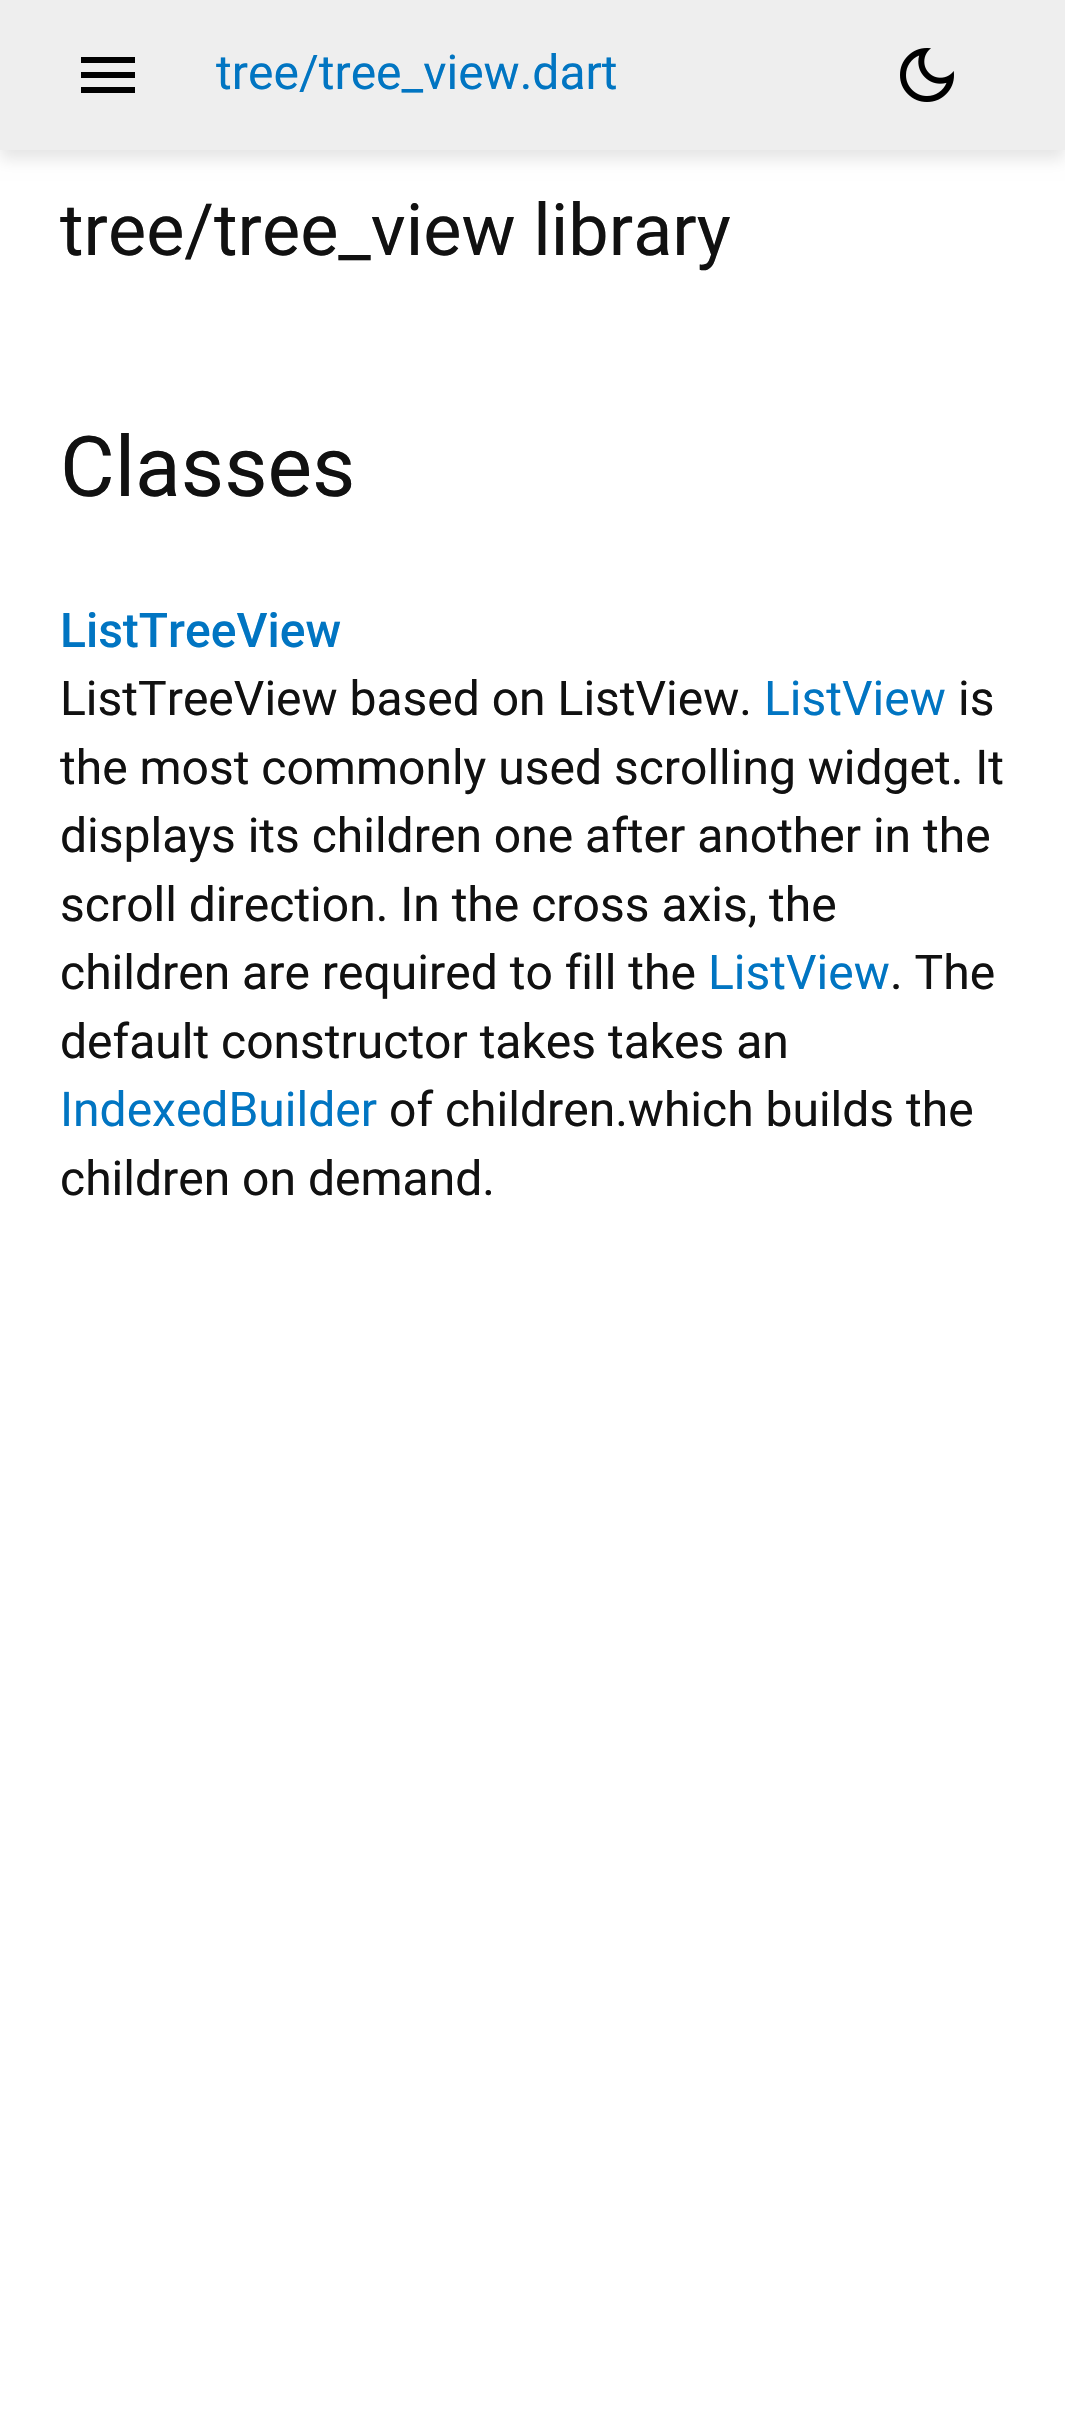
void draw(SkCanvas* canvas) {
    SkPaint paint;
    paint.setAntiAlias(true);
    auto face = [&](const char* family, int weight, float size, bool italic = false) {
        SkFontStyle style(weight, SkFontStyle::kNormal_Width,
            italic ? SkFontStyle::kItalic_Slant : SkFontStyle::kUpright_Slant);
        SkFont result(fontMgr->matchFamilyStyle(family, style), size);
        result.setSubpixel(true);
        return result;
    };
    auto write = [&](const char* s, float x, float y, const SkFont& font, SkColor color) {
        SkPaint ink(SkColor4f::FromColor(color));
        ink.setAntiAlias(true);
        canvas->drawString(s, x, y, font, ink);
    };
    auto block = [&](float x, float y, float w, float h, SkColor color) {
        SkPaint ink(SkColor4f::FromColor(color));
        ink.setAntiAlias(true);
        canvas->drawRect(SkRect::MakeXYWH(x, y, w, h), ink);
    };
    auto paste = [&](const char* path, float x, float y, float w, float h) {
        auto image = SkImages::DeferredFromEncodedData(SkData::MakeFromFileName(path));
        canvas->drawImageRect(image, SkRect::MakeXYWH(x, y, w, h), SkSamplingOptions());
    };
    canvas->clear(SK_ColorWHITE);
    paint.setColor(SkColorSetARGB(26, 0, 0, 0));
    paint.setMaskFilter(SkMaskFilter::MakeBlur(kNormal_SkBlurStyle, 7.5f));
    canvas->drawRect(SkRect::MakeXYWH(0, 9, 1065, 150), paint);
    paint.setMaskFilter(nullptr);
    block(0, 0, 1065, 150, SkColorSetRGB(238, 238, 238));
    paint.setColor(SK_ColorBLACK);
    canvas->drawPath(SkPathBuilder().moveTo(81, 93).lineTo(81, 87).lineTo(135, 87).lineTo(135, 93).close().moveTo(81, 78).lineTo(81, 72).lineTo(135, 72).lineTo(135, 78).close().moveTo(81, 63).lineTo(81, 57).lineTo(135, 57).lineTo(135, 63).close().detach(), paint);
    auto kFont1 = face("Roboto", 400, 48);
    write("tree/tree_view.dart", 216, 89, kFont1, SkColorSetRGB(1, 117, 194));
    paste("pic1.png", 900, 48, 54, 54);
    auto kFont2 = face("Roboto", 400, 72);
    write("tree/tree_view library", 60, 255, kFont2, SkColorSetRGB(17, 17, 17));
    auto kFont3 = face("Roboto", 400, 84);
    write("Classes", 60, 496, kFont3, SkColorSetRGB(17, 17, 17));
    auto kFont4 = face("Roboto", 500, 48);
    write("ListTreeView", 60, 647, kFont4, SkColorSetRGB(1, 117, 194));
    write("ListTreeView based on ListView.", 60, 715, kFont1, SkColorSetRGB(17, 17, 17));
    write("ListView", 764, 715, kFont1, SkColorSetRGB(1, 117, 194));
    write("is", 958, 715, kFont1, SkColorSetRGB(17, 17, 17));
    write("the most commonly used scrolling widget. It", 60, 784, kFont1, SkColorSetRGB(17, 17, 17));
    write("displays its children one after another in the", 60, 852, kFont1, SkColorSetRGB(17, 17, 17));
    write("scroll direction. In the cross axis, the", 60, 921, kFont1, SkColorSetRGB(17, 17, 17));
    write("children are required to fill the", 60, 989, kFont1, SkColorSetRGB(17, 17, 17));
    write("ListView", 708, 989, kFont1, SkColorSetRGB(1, 117, 194));
    write(". The", 890, 989, kFont1, SkColorSetRGB(17, 17, 17));
    write("default constructor takes takes an", 60, 1058, kFont1, SkColorSetRGB(17, 17, 17));
    write("IndexedBuilder", 60, 1126, kFont1, SkColorSetRGB(1, 117, 194));
    write("of children.which builds the", 389, 1126, kFont1, SkColorSetRGB(17, 17, 17));
    write("children on demand.", 60, 1195, kFont1, SkColorSetRGB(17, 17, 17));
}
